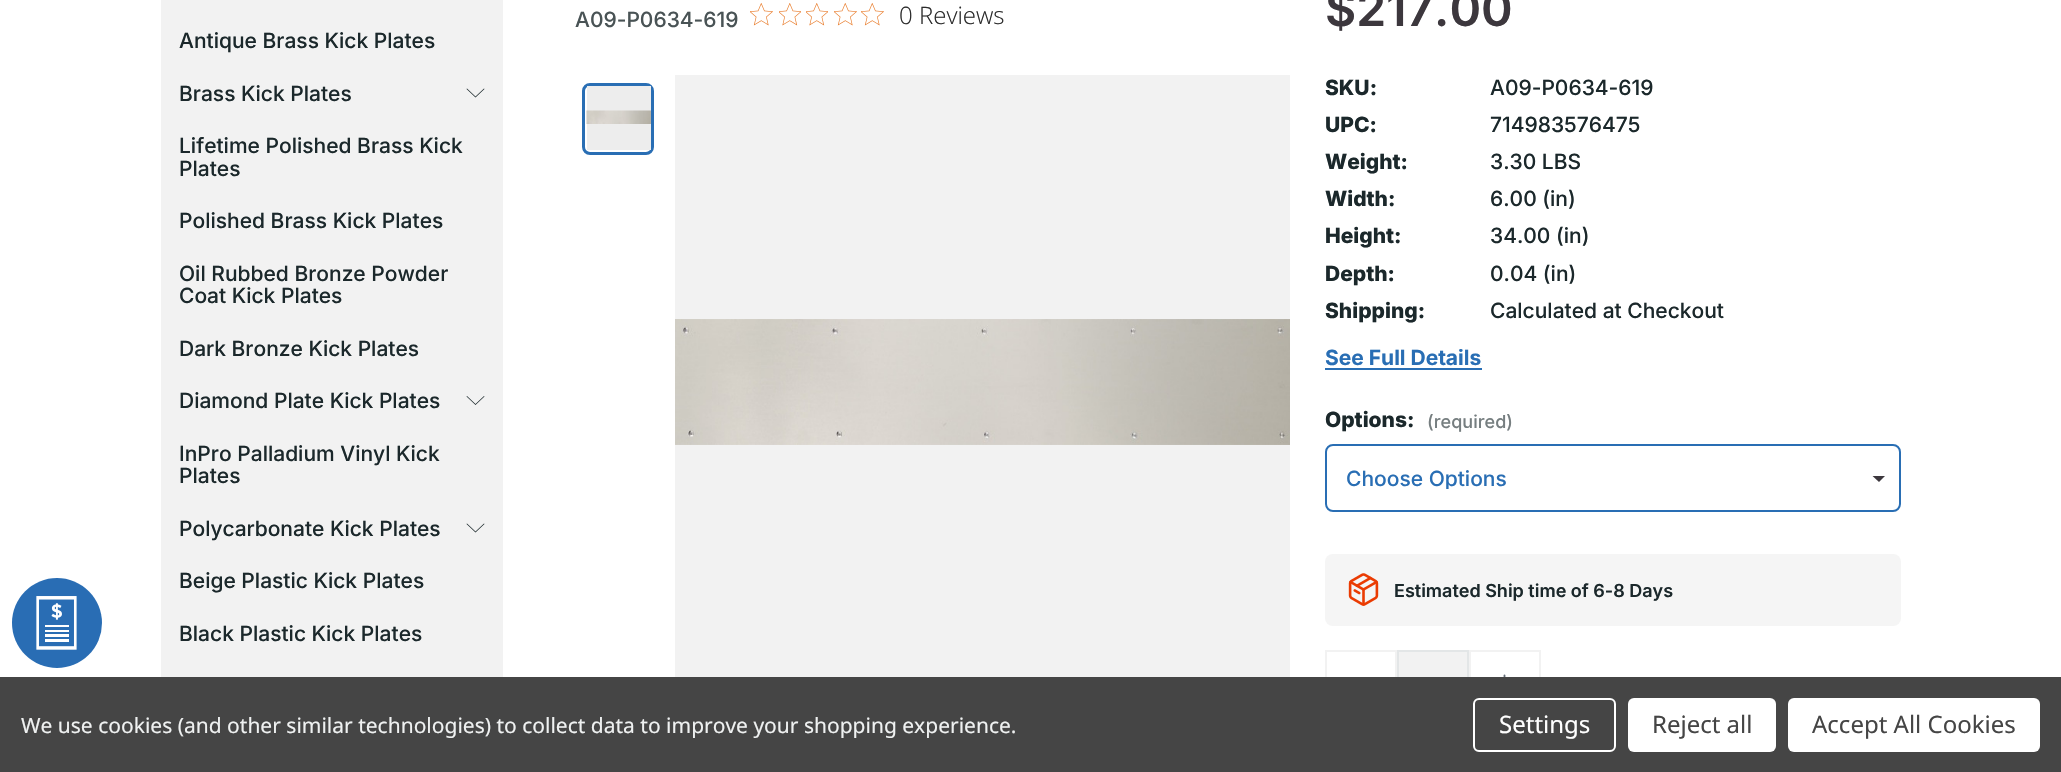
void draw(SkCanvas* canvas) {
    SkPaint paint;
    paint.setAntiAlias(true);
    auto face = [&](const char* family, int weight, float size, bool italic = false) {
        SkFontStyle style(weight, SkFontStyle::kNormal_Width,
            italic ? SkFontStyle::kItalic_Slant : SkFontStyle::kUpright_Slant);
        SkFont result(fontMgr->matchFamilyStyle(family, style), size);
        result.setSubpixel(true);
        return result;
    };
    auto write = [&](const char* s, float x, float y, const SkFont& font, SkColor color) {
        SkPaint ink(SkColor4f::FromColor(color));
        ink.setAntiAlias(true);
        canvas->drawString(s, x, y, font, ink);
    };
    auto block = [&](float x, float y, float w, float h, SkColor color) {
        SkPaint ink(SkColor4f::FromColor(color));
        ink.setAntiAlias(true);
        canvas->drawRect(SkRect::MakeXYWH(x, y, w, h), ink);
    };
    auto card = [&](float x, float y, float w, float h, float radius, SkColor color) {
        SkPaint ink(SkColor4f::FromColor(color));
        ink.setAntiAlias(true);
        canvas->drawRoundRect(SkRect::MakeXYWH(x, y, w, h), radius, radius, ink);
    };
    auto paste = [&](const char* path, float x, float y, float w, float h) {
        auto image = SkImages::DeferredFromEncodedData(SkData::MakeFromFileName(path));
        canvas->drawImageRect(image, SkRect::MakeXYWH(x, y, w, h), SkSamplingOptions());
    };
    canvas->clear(SK_ColorWHITE);
    paint.setColor(SkColorSetRGB(41, 109, 180));
    canvas->drawCircle(57, 623, 45, paint);
    paste("pic1.png", 36, 596, 41, 54);
    block(161, 0, 342, 677, SkColorSetRGB(242, 242, 242));
    auto kFont1 = face("Inter", 500, 21);
    write("Antique Brass Kick Plates", 179, 48, kFont1, SkColorSetRGB(27, 40, 43));
    write("Brass Kick Plates", 179, 101, kFont1, SkColorSetRGB(27, 40, 43));
    paint.setColor(SkColorSetRGB(27, 40, 43));
    canvas->drawPath(SkPathBuilder(SkPathFillType::kEvenOdd).moveTo(475.5f, 96.5f).lineTo(484, 88.5f).lineTo(484.5f, 89).lineTo(475.5f, 97.5f).lineTo(466.5f, 89).lineTo(467, 88.5f).close().detach(), paint);
    write("Lifetime Polished Brass Kick", 179, 153, kFont1, SkColorSetRGB(27, 40, 43));
    write("Plates", 179, 176, kFont1, SkColorSetRGB(27, 40, 43));
    write("Polished Brass Kick Plates", 179, 228, kFont1, SkColorSetRGB(27, 40, 43));
    write("Oil Rubbed Bronze Powder", 179, 281, kFont1, SkColorSetRGB(27, 40, 43));
    write("Coat Kick Plates", 179, 303, kFont1, SkColorSetRGB(27, 40, 43));
    write("Dark Bronze Kick Plates", 179, 356, kFont1, SkColorSetRGB(27, 40, 43));
    write("Diamond Plate Kick Plates", 179, 408, kFont1, SkColorSetRGB(27, 40, 43));
    canvas->drawPath(SkPathBuilder(SkPathFillType::kEvenOdd).moveTo(475.5f, 404).lineTo(484, 396).lineTo(484.5f, 396.5f).lineTo(475.5f, 405).lineTo(466.5f, 396.5f).lineTo(467, 396).close().detach(), paint);
    write("InPro Palladium Vinyl Kick", 179, 461, kFont1, SkColorSetRGB(27, 40, 43));
    write("Plates", 179, 483, kFont1, SkColorSetRGB(27, 40, 43));
    write("Polycarbonate Kick Plates", 179, 536, kFont1, SkColorSetRGB(27, 40, 43));
    canvas->drawPath(SkPathBuilder(SkPathFillType::kEvenOdd).moveTo(475.5f, 531.5f).lineTo(484, 523.5f).lineTo(484.5f, 524).lineTo(475.5f, 532.5f).lineTo(466.5f, 524).lineTo(467, 523.5f).close().detach(), paint);
    write("Beige Plastic Kick Plates", 179, 588, kFont1, SkColorSetRGB(27, 40, 43));
    write("Black Plastic Kick Plates", 179, 641, kFont1, SkColorSetRGB(27, 40, 43));
    write("A09-P0634-619", 575, 27, kFont1, SkColorSetRGB(73, 83, 85));
    paste("pic2.png", 750, 3, 23, 23);
    paste("pic3.png", 779, 3, 22, 23);
    paste("pic3.png", 806, 3, 22, 23);
    paste("pic2.png", 834, 3, 23, 23);
    paste("pic2.png", 861, 3, 23, 23);
    auto kFont2 = face("Open Sans", 300, 24);
    write("0 Reviews", 899, 24, kFont2, SkColorSetRGB(44, 44, 44));
    auto kFont3 = face("Inter", 600, 48);
    write("$217.00", 1325, 26, kFont3, SkColorSetRGB(60, 55, 61));
    paint.setStyle(SkPaint::kStroke_Style);
    paint.setStrokeWidth(3);
    paint.setColor(SkColorSetRGB(41, 110, 180));
    canvas->drawRoundRect(SkRect::MakeXYWH(583.5f, 84.5f, 69, 69), 6.5f, 6.5f, paint);
    block(587, 86, 64, 64, SkColorSetRGB(237, 237, 237));
    paste("pic4.png", 586, 110, 65, 14);
    block(675, 75, 615, 602, SkColorSetRGB(242, 242, 242));
    paste("pic5.png", 675, 319, 615, 126);
    auto kFont4 = face("Inter", 800, 21);
    write("SKU:", 1325, 95, kFont4, SkColorSetRGB(27, 40, 43));
    write("A09-P0634-619", 1490, 95, kFont1, SkColorSetRGB(27, 40, 43));
    write("UPC:", 1325, 132, kFont4, SkColorSetRGB(27, 40, 43));
    write("714983576475", 1490, 132, kFont1, SkColorSetRGB(27, 40, 43));
    write("Weight:", 1325, 169, kFont4, SkColorSetRGB(27, 40, 43));
    write("3.30 LBS", 1490, 169, kFont1, SkColorSetRGB(27, 40, 43));
    write("Width:", 1325, 206, kFont4, SkColorSetRGB(27, 40, 43));
    write("6.00 (in)", 1490, 206, kFont1, SkColorSetRGB(27, 40, 43));
    write("Height:", 1325, 243, kFont4, SkColorSetRGB(27, 40, 43));
    write("34.00 (in)", 1490, 243, kFont1, SkColorSetRGB(27, 40, 43));
    write("Depth:", 1325, 281, kFont4, SkColorSetRGB(27, 40, 43));
    write("0.04 (in)", 1490, 281, kFont1, SkColorSetRGB(27, 40, 43));
    write("Shipping:", 1325, 318, kFont4, SkColorSetRGB(27, 40, 43));
    write("Calculated at Checkout", 1490, 318, kFont1, SkColorSetRGB(27, 40, 43));
    auto kFont5 = face("Inter", 700, 21);
    write("See Full Details", 1325, 365, kFont5, SkColorSetRGB(41, 110, 180));
    block(1325, 368, 157, 2, SkColorSetRGB(41, 110, 180));
    write("Options:", 1325, 427, kFont4, SkColorSetRGB(27, 40, 43));
    auto kFont6 = face("Inter", 500, 18);
    write("(required)", 1427, 428, kFont6, SkColorSetRGB(118, 126, 128));
    canvas->save();
    canvas->clipRect(SkRect::MakeXYWH(1872, 476, 15, 6));
    paint.setStyle(SkPaint::kFill_Style);
    paint.setColor(SkColorSetRGB(60, 55, 61));
    canvas->drawPath(SkPathBuilder().moveTo(1879, 482).lineTo(1872, 475.5f).lineTo(1885.5f, 475.5f).close().detach(), paint);
    canvas->restore();
    paint.setStyle(SkPaint::kStroke_Style);
    paint.setStrokeWidth(2);
    paint.setColor(SkColorSetRGB(41, 110, 180));
    canvas->drawRoundRect(SkRect::MakeXYWH(1326, 445, 574, 66), 7, 7, paint);
    canvas->save();
    canvas->clipRect(SkRect::MakeXYWH(1346, 467, 534, 22));
    write("Choose Options", 1346, 486, kFont1, SkColorSetRGB(41, 110, 180));
    canvas->restore();
    card(1325, 554, 576, 72, 8, SkColorSetRGB(245, 245, 245));
    paste("pic6.png", 1348, 573, 31, 33);
    auto kFont7 = face("Inter", 600, 18);
    write("Estimated Ship time of 6-8 Days", 1394, 597, kFont7, SkColorSetRGB(27, 40, 43));
    paint.setColor(SkColorSetRGB(242, 242, 242));
    canvas->drawRect(SkRect::MakeXYWH(1326, 651, 70, 64), paint);
    block(1399, 652, 68, 25, SkColorSetRGB(242, 242, 242));
    paint.setColor(SkColorSetRGB(227, 230, 231));
    canvas->drawRect(SkRect::MakeXYWH(1398, 651, 70, 64), paint);
    paint.setColor(SkColorSetRGB(242, 242, 242));
    canvas->drawRect(SkRect::MakeXYWH(1470, 651, 70, 64), paint);
    paint.setStrokeWidth(1.8f);
    paint.setStrokeCap(SkPaint::kRound_Cap);
    paint.setStrokeJoin(SkPaint::kRound_Join);
    paint.setColor(SkColorSetRGB(100, 110, 120));
    canvas->drawPath(SkPathBuilder().moveTo(1504.5f, 675.5f).lineTo(1504.5f, 689.5f).detach(), paint);
    block(0, 677, 2061, 95, SkColorSetRGB(69, 69, 69));
    auto kFont8 = face("Noto Sans", 400, 21);
    write("We use cookies (and other similar technologies) to collect data to improve your shopping experience.", 21, 733, kFont8, SkColorSetRGB(239, 241, 241));
    paint.setStrokeWidth(2);
    paint.setStrokeCap(SkPaint::kButt_Cap);
    paint.setStrokeJoin(SkPaint::kMiter_Join);
    paint.setColor(SK_ColorWHITE);
    canvas->drawRoundRect(SkRect::MakeXYWH(1474, 699, 141, 52), 5, 5, paint);
    auto kFont9 = face("Noto Sans", 400, 24);
    write("Settings", 1499, 733, kFont9, SK_ColorWHITE);
    card(1628, 698, 148, 54, 6, SK_ColorWHITE);
    write("Reject all", 1652, 733, kFont9, SkColorSetRGB(69, 69, 69));
    card(1788, 698, 252, 54, 6, SK_ColorWHITE);
    write("Accept All Cookies", 1812, 733, kFont9, SkColorSetRGB(69, 69, 69));
}
